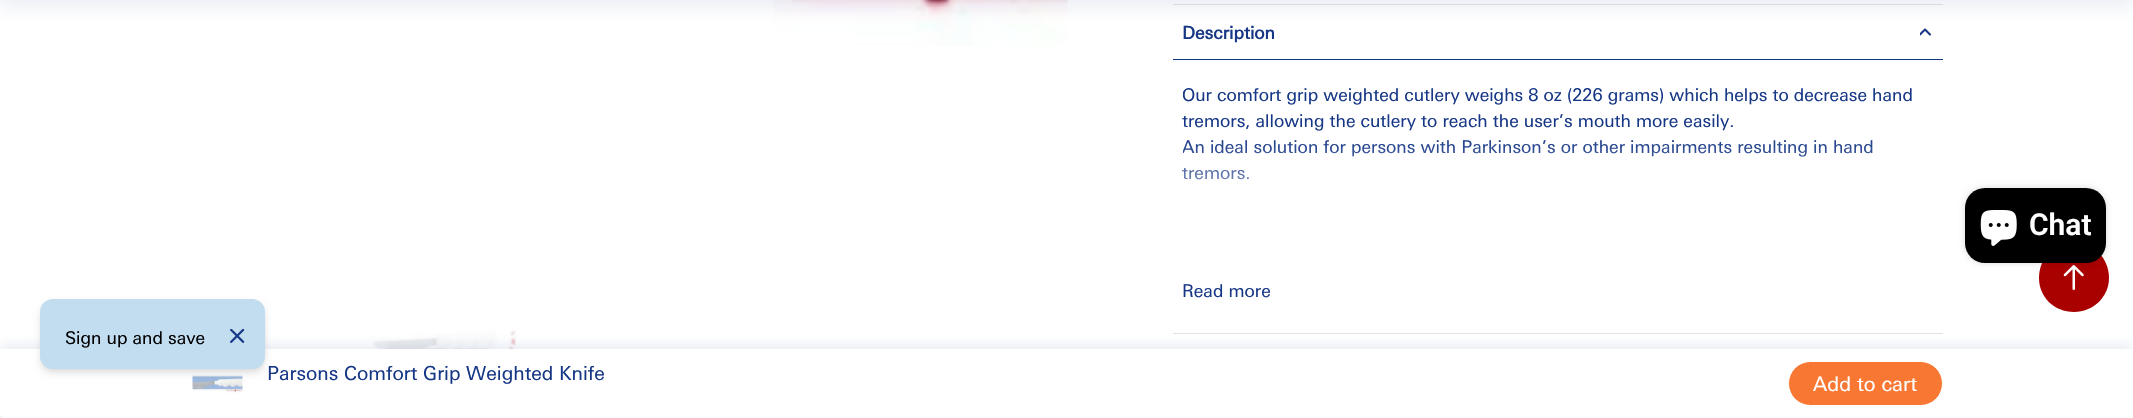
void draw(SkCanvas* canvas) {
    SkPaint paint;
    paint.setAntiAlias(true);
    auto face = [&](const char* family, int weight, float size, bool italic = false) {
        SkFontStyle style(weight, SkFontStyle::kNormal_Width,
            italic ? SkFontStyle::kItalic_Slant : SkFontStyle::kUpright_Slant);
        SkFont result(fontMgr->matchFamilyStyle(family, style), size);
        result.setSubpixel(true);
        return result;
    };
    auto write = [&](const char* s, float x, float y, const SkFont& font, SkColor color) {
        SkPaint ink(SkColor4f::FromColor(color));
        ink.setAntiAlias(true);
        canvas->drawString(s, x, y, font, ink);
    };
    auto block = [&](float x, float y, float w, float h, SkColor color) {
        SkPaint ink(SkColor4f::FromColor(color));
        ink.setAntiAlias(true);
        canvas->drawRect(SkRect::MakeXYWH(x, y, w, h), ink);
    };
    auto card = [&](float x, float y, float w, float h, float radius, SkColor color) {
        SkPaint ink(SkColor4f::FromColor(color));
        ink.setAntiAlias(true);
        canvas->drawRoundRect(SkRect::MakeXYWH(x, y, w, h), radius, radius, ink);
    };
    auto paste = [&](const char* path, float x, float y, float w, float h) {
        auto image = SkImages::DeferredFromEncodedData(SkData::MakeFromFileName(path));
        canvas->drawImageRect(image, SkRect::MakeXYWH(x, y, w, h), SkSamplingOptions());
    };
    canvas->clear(SK_ColorWHITE);
    paste("pic1.png", 773, 0, 295, 46);
    block(1173, 4, 770, 1, SkColorSetRGB(227, 227, 227));
    canvas->save();
    canvas->clipRect(SkRect::MakeXYWH(1920, 28, 13, 10));
    paint.setStyle(SkPaint::kStroke_Style);
    paint.setStrokeWidth(2.1f);
    paint.setStrokeCap(SkPaint::kRound_Cap);
    paint.setStrokeJoin(SkPaint::kRound_Join);
    paint.setColor(SkColorSetRGB(22, 55, 134));
    canvas->drawPath(SkPathBuilder().moveTo(1930, 34.5f).lineTo(1925, 29.5f).lineTo(1920, 34.5f).detach(), paint);
    canvas->restore();
    paint.setStyle(SkPaint::kFill_Style);
    paint.setColor(SkColorSetARGB(26, 22, 55, 134));
    paint.setMaskFilter(SkMaskFilter::MakeBlur(kNormal_SkBlurStyle, 9.5f));
    canvas->drawRect(SkRect::MakeXYWH(0, -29, 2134, 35), paint);
    paint.setMaskFilter(nullptr);
    paste("pic2.png", 373, 329, 143, 20);
    block(1173, 333, 770, 1, SkColorSetRGB(227, 227, 227));
    auto kFont1 = face("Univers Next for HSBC", 700, 17.5f);
    write("Description", 1182, 39, kFont1, SkColorSetRGB(22, 55, 134));
    block(1173, 59, 770, 1, SkColorSetRGB(22, 55, 134));
    canvas->save();
    canvas->clipRect(SkRect::MakeXYWH(1183, 70, 750, 188));
    auto kFont2 = face("Univers Next for HSBC", 400, 17.5f);
    write("Our comfort grip weighted cutlery weighs 8 oz (226 grams) which helps to decrease hand", 1182, 101, kFont2, SkColorSetRGB(22, 55, 134));
    canvas->restore();
    write("tremors, allowing the cutlery to reach the user’s mouth more easily.", 1182, 127, kFont2, SkColorSetRGB(22, 55, 134));
    canvas->save();
    canvas->clipRect(SkRect::MakeXYWH(1183, 70, 750, 188));
    write("An ideal solution for persons with Parkinson’s or other impairments resulting in hand", 1182, 153, kFont2, SkColorSetRGB(22, 55, 134));
    canvas->restore();
    write("tremors.", 1182, 179, kFont2, SkColorSetRGB(22, 55, 134));
    {
        const SkColor colors[] = {SkColorSetARGB(0, 255, 255, 255), SK_ColorWHITE};
        const float stops[] = {0, 1};
        const SkPoint ends[] = {{1558, 136}, {1558, 258}};
        paint.setShader(SkGradientShader::MakeLinear(ends, colors, stops, 2, SkTileMode::kClamp));
        paint.setAlpha(255);
    }
    canvas->drawRect(SkRect::MakeXYWH(1183, 140, 690, 40), paint);
    write("Read more", 1182, 297, kFont2, SkColorSetRGB(22, 55, 134));
    paint.setShader(nullptr);
    paint.setColor(SkColorSetARGB(26, 22, 55, 134));
    paint.setMaskFilter(SkMaskFilter::MakeBlur(kNormal_SkBlurStyle, 6));
    canvas->drawRect(SkRect::MakeXYWH(1, 345, 2132, 68), paint);
    paint.setMaskFilter(nullptr);
    block(0, 349, 2133, 69, SK_ColorWHITE);
    paste("pic3.png", 192, 374, 51, 20);
    auto kFont3 = face("Univers Next for HSBC", 400, 19.25f);
    write("Parsons Comfort Grip Weighted Knife", 267, 380, kFont3, SkColorSetRGB(22, 55, 134));
    paint.setColor(SkColorSetRGB(248, 119, 51));
    canvas->drawRoundRect(SkRect::MakeXYWH(1788.5f, 361.5f, 154, 44), 22, 22, paint);
    paint.setStyle(SkPaint::kStroke_Style);
    paint.setStrokeWidth(1);
    paint.setStrokeCap(SkPaint::kButt_Cap);
    paint.setStrokeJoin(SkPaint::kMiter_Join);
    paint.setColor(SK_ColorWHITE);
    canvas->drawRoundRect(SkRect::MakeXYWH(1788.5f, 361.5f, 154, 44), 22, 22, paint);
    auto kFont4 = face("Univers Next for HSBC", 400, 20);
    write("Add to cart", 1813, 391, kFont4, SK_ColorWHITE);
    paint.setStyle(SkPaint::kFill_Style);
    paint.setColor(SkColorSetRGB(169, 0, 0));
    canvas->drawPath(SkPathBuilder().moveTo(2039, 278).cubicTo(2039, 258, 2054, 242, 2074, 242).cubicTo(2093, 242, 2109, 258, 2109, 278).cubicTo(2109, 297, 2093, 312, 2074, 312).cubicTo(2054, 312, 2039, 297, 2039, 278).close().detach(), paint);
    paste("pic4.png", 2063, 265, 21, 25);
    paint.setColor(SkColorSetARGB(26, 0, 0, 0));
    paint.setMaskFilter(SkMaskFilter::MakeBlur(kNormal_SkBlurStyle, 2.5f));
    canvas->drawRoundRect(SkRect::MakeXYWH(43, 304, 220, 65), 10, 10, paint);
    paint.setMaskFilter(nullptr);
    paint.setMaskFilter(SkMaskFilter::MakeBlur(kNormal_SkBlurStyle, 4));
    canvas->drawRoundRect(SkRect::MakeXYWH(41, 305, 223, 68), 11, 11, paint);
    paint.setMaskFilter(nullptr);
    card(40, 299, 225, 70, 13, SkColorSetRGB(194, 220, 240));
    write("Sign up and save", 65, 344, kFont2, SK_ColorBLACK);
    paste("pic5.png", 230, 329, 15, 14);
    paint.setColor(SkColorSetARGB(38, 0, 0, 0));
    paint.setMaskFilter(SkMaskFilter::MakeBlur(kNormal_SkBlurStyle, 3));
    canvas->drawRoundRect(SkRect::MakeXYWH(1965, 188, 141, 75), 20, 20, paint);
    paint.setMaskFilter(nullptr);
    card(1965, 188, 141, 75, 20, SK_ColorBLACK);
    paste("pic6.png", 1980, 210, 37, 36);
    auto kFont5 = face("Roboto", 600, 30);
    write("Chat", 2029, 235, kFont5, SK_ColorWHITE);
    block(0, 416, 3, 2, SkColorSetRGB(245, 245, 245));
}
